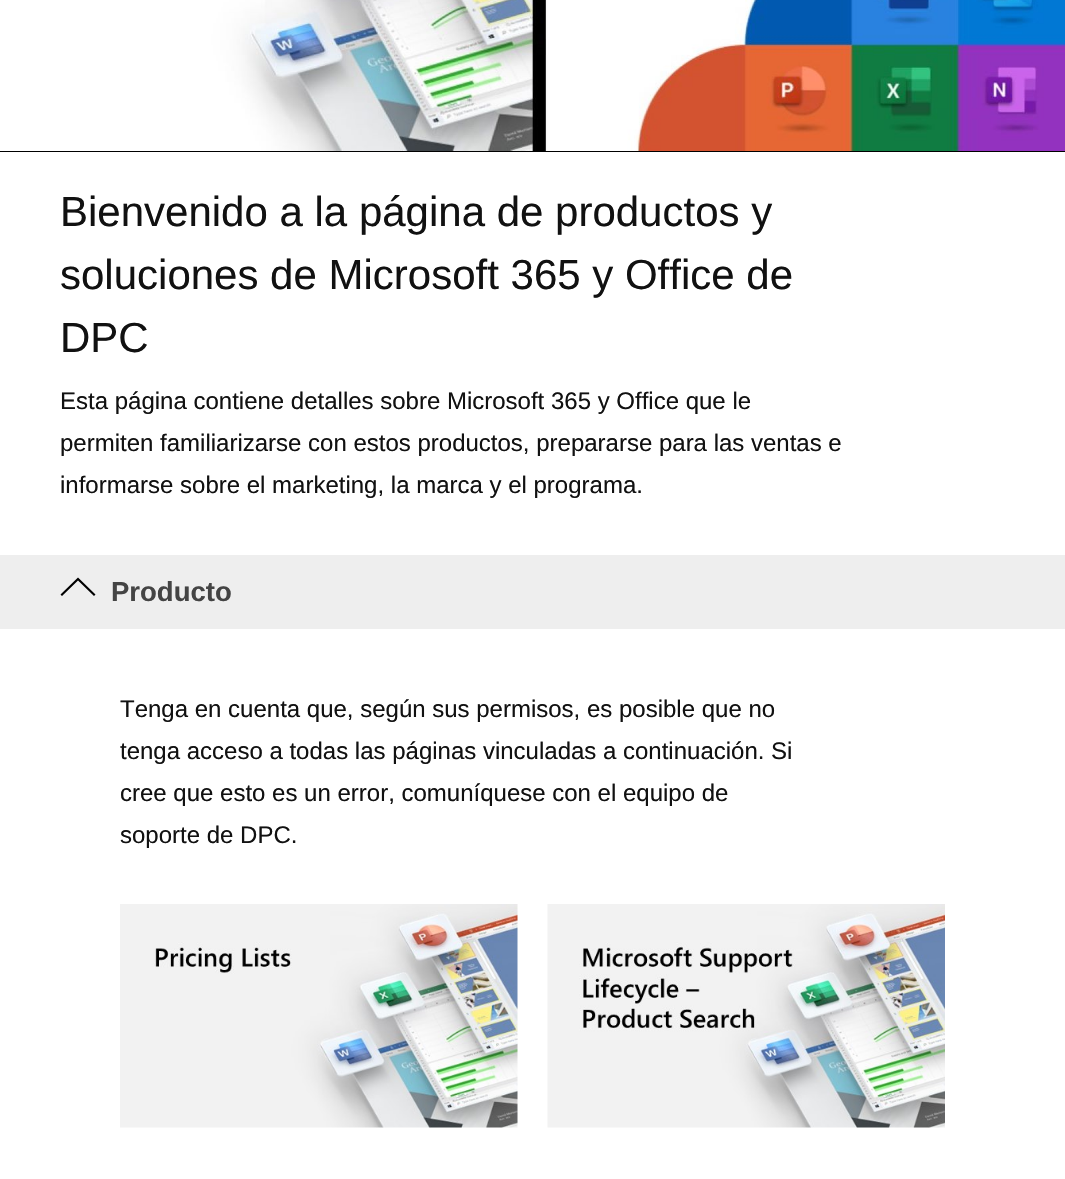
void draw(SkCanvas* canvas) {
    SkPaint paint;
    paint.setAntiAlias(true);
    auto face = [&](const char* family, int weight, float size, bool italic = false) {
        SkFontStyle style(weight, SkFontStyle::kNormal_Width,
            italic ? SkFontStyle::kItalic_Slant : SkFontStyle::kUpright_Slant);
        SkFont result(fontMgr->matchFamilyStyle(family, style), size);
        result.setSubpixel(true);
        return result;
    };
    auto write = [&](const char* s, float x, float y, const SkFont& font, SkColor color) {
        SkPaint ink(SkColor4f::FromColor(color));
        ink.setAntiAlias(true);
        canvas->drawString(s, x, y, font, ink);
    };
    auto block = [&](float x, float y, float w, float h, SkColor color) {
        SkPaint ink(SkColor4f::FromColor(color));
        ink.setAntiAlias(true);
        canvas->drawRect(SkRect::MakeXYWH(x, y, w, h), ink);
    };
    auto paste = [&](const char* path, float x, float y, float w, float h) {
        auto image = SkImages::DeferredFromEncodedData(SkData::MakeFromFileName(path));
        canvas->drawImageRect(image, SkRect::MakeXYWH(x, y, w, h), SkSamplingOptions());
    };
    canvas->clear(SK_ColorWHITE);
    block(0, 151, 1065, 1, SK_ColorBLACK);
    paste("pic1.png", 0, 0, 1065, 151);
    auto kFont1 = face("Liberation Sans", 400, 42);
    write("Bienvenido a la página de productos y", 60, 226, kFont1, SkColorSetRGB(17, 17, 17));
    write("soluciones de Microsoft 365 y Office de", 60, 289, kFont1, SkColorSetRGB(17, 17, 17));
    write("DPC", 60, 352, kFont1, SkColorSetRGB(17, 17, 17));
    auto kFont2 = face("Liberation Sans", 400, 24);
    write("Esta página contiene detalles sobre Microsoft 365 y Office que le", 60, 409, kFont2, SkColorSetRGB(17, 17, 17));
    write("permiten familiarizarse con estos productos, prepararse para las ventas e", 60, 451, kFont2, SkColorSetRGB(17, 17, 17));
    write("informarse sobre el marketing, la marca y el programa.", 60, 493, kFont2, SkColorSetRGB(17, 17, 17));
    block(0, 555, 1065, 74, SkColorSetRGB(238, 238, 238));
    paint.setColor(SK_ColorBLACK);
    canvas->drawPath(SkPathBuilder().moveTo(94, 596).lineTo(95.5f, 594.5f).lineTo(78, 577.5f).lineTo(60.5f, 594.5f).lineTo(62, 596).lineTo(78, 580.5f).close().detach(), paint);
    auto kFont3 = face("Liberation Sans", 700, 27.5f);
    write("Producto", 111, 601, kFont3, SkColorSetRGB(68, 68, 68));
    write("Tenga en cuenta que, según sus permisos, es posible que no", 120, 717, kFont2, SkColorSetRGB(17, 17, 17));
    write("tenga acceso a todas las páginas vinculadas a continuación. Si", 120, 759, kFont2, SkColorSetRGB(17, 17, 17));
    write("cree que esto es un error, comuníquese con el equipo de", 120, 801, kFont2, SkColorSetRGB(17, 17, 17));
    write("soporte de DPC.", 120, 843, kFont2, SkColorSetRGB(17, 17, 17));
    paste("pic2.png", 120, 904, 398, 224);
    paste("pic3.png", 547, 904, 398, 224);
}
